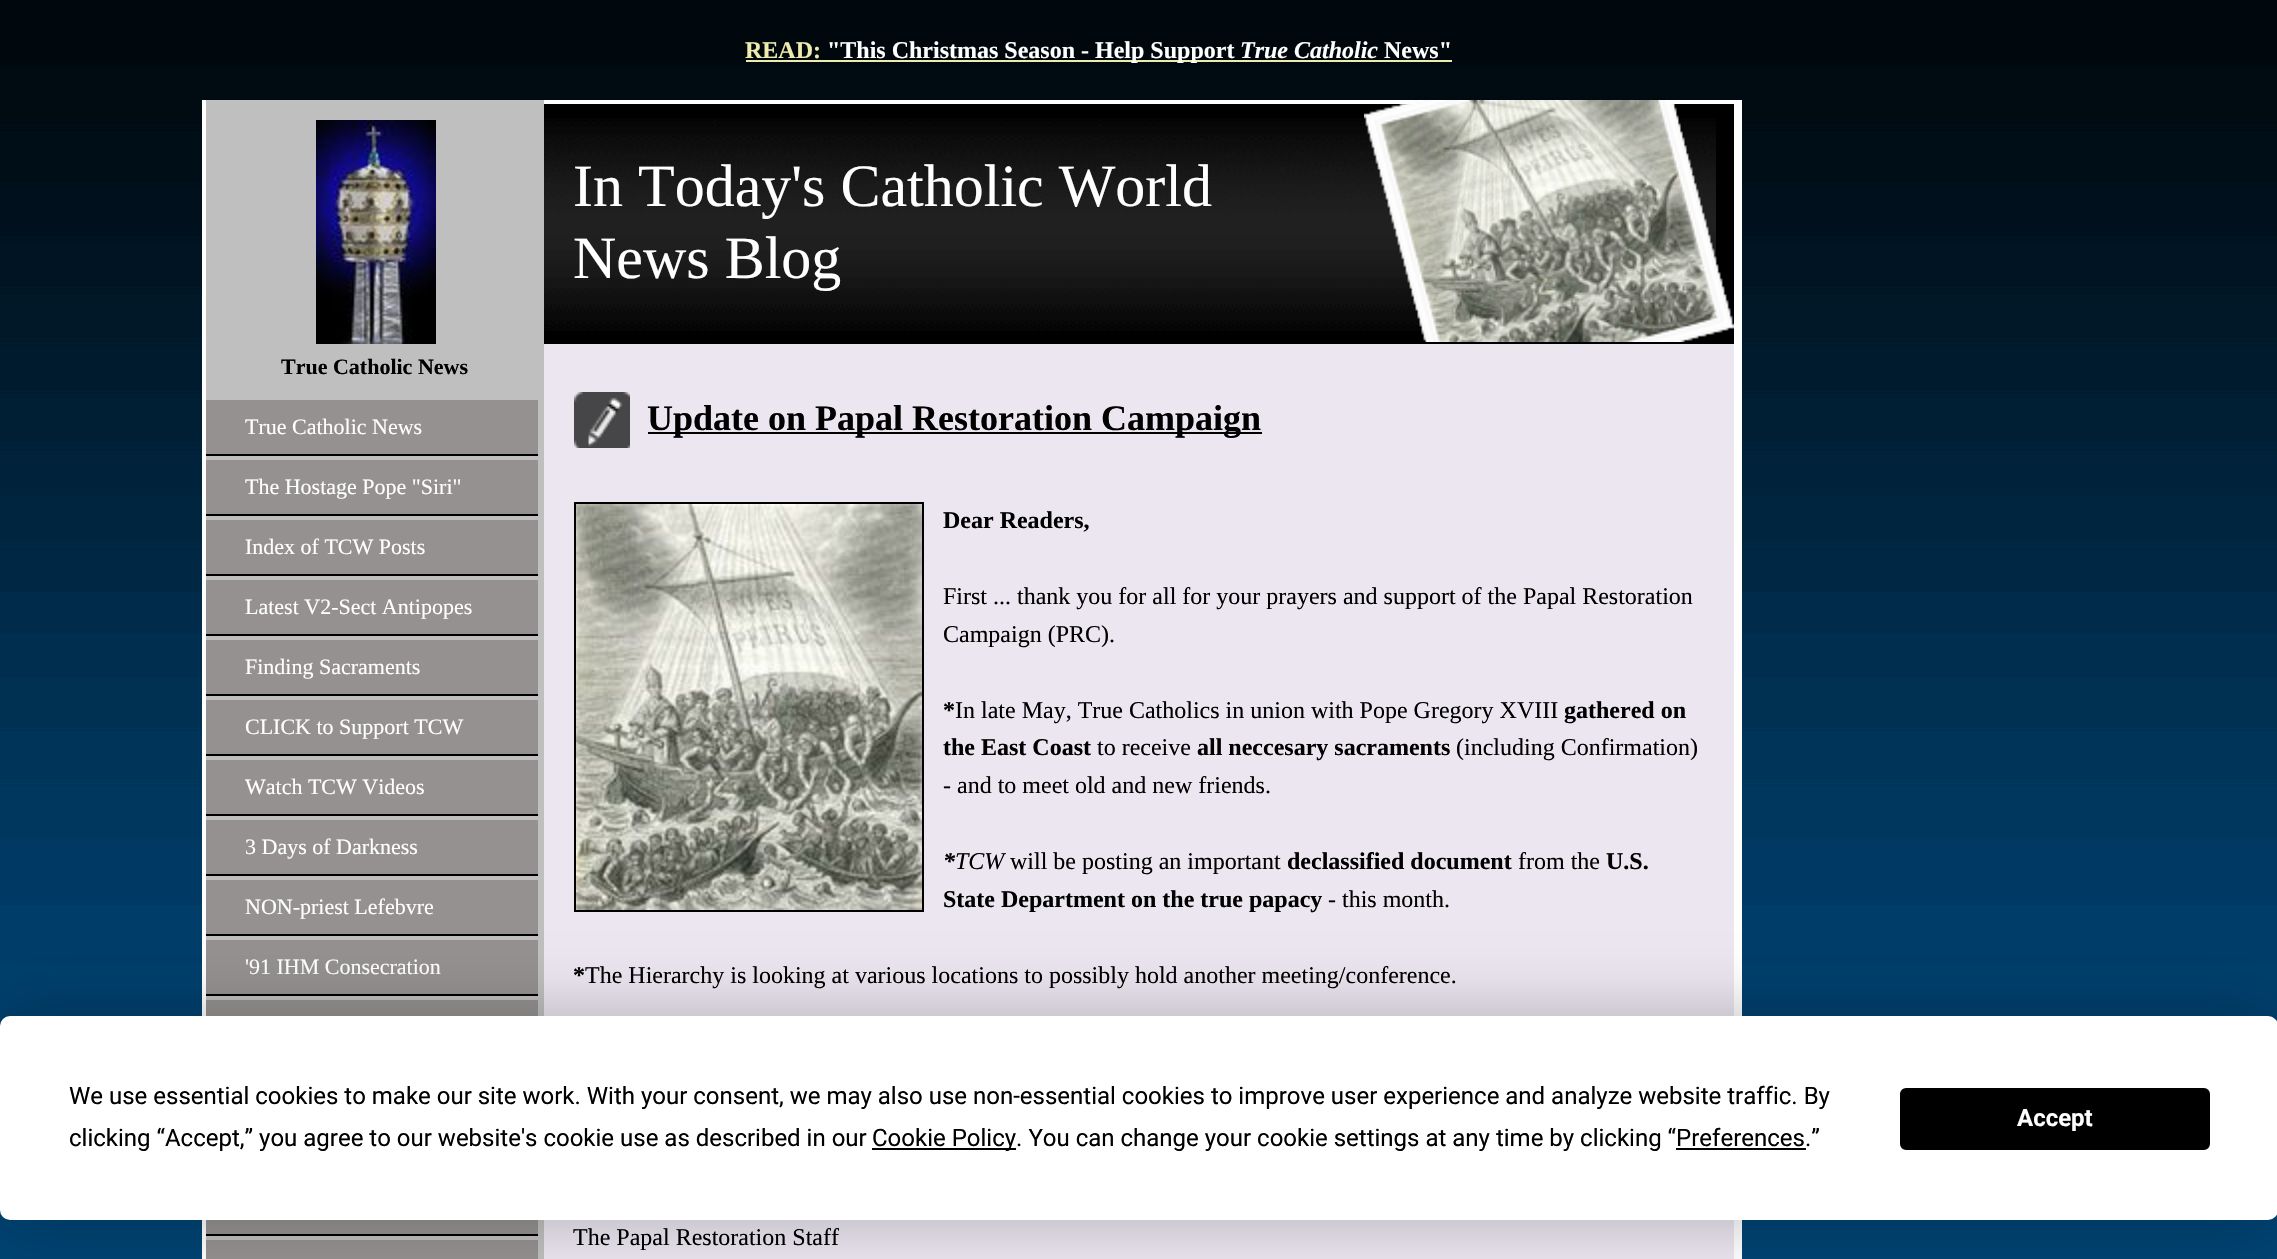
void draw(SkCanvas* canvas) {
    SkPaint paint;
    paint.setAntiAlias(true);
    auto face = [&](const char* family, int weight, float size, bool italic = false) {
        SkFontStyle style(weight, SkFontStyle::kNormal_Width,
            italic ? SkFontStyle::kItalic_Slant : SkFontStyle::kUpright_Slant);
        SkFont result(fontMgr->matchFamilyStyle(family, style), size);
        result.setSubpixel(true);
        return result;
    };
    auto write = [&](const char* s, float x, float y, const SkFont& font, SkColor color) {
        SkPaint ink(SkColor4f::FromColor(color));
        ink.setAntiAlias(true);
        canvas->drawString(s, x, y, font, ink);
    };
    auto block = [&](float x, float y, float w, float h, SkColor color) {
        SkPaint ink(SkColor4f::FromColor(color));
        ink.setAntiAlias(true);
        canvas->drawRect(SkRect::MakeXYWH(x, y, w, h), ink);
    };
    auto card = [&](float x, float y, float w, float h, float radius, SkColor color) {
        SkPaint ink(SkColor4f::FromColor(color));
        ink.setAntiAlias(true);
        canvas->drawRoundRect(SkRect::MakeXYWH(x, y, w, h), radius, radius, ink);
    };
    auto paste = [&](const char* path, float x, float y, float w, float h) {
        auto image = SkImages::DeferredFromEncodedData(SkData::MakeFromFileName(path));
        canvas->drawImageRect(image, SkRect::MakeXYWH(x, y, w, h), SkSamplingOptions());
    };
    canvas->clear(SkColorSetRGB(0, 67, 115));
    paste("pic1.png", 0, 0, 2277, 1024);
    auto kFont1 = face("Liberation Serif", 700, 24);
    write("READ:", 745, 58, kFont1, SkColorSetRGB(237, 235, 173));
    block(746, 60, 706, 2, SkColorSetRGB(237, 235, 173));
    write("\"This Christmas Season - Help Support", 827, 58, kFont1, SK_ColorWHITE);
    auto kFont2 = face("Liberation Serif", 700, 24, true);
    write("True Catholic", 1240, 58, kFont2, SK_ColorWHITE);
    write("News\"", 1384, 58, kFont1, SK_ColorWHITE);
    block(202, 100, 1540, 1159, SK_ColorWHITE);
    block(206, 100, 338, 1159, SkColorSetRGB(192, 191, 191));
    paste("pic2.png", 316, 120, 120, 224);
    auto kFont3 = face("Liberation Serif", 700, 22);
    write("True Catholic News", 281, 374, kFont3, SK_ColorBLACK);
    block(544, 344, 1190, 915, SkColorSetRGB(235, 230, 240));
    block(544, 104, 1190, 240, SK_ColorBLACK);
    paste("pic3.png", 544, 118, 1172, 213);
    auto kFont4 = face("Liberation Serif", 400, 60);
    write("In Today's Catholic World", 573, 206, kFont4, SK_ColorWHITE);
    write("News Blog", 573, 278, kFont4, SK_ColorWHITE);
    paste("pic4.png", 1364, 100, 370, 242);
    paste("pic5.png", 574, 392, 56, 56);
    block(648, 432, 614, 2, SK_ColorBLACK);
    auto kFont5 = face("Liberation Serif", 700, 36);
    write("Update on Papal Restoration Campaign", 647, 430, kFont5, SK_ColorBLACK);
    paint.setStyle(SkPaint::kStroke_Style);
    paint.setStrokeWidth(2);
    paint.setColor(SK_ColorBLACK);
    canvas->drawRect(SkRect::MakeXYWH(575, 503, 348, 408), paint);
    paste("pic6.png", 576, 504, 346, 406);
    write("Dear Readers,", 943, 528, kFont1, SK_ColorBLACK);
    auto kFont6 = face("Liberation Serif", 400, 24);
    write("First ... thank you for all for your prayers and support of the Papal Restoration", 943, 604, kFont6, SK_ColorBLACK);
    write("Campaign (PRC).", 943, 642, kFont6, SK_ColorBLACK);
    write("*", 943, 718, kFont1, SK_ColorBLACK);
    write("In late May, True Catholics in union with Pope Gregory XVIII", 955, 718, kFont6, SK_ColorBLACK);
    write("gathered on", 1564, 718, kFont1, SK_ColorBLACK);
    write("the East Coast", 943, 755, kFont1, SK_ColorBLACK);
    write("to receive", 1097, 755, kFont6, SK_ColorBLACK);
    write("all neccesary sacraments", 1197, 755, kFont1, SK_ColorBLACK);
    write("(including Confirmation)", 1456, 755, kFont6, SK_ColorBLACK);
    write("- and to meet old and new friends.", 943, 793, kFont6, SK_ColorBLACK);
    write("*", 943, 869, kFont2, SK_ColorBLACK);
    auto kFont7 = face("Liberation Serif", 400, 24, true);
    write("TCW", 955, 869, kFont7, SK_ColorBLACK);
    write("will be posting an important", 1010, 869, kFont6, SK_ColorBLACK);
    write("declassified document", 1287, 869, kFont1, SK_ColorBLACK);
    write("from the", 1518, 869, kFont6, SK_ColorBLACK);
    write("U.S.", 1606, 869, kFont1, SK_ColorBLACK);
    write("State Department on the true papacy", 943, 907, kFont1, SK_ColorBLACK);
    write("- this month.", 1328, 907, kFont6, SK_ColorBLACK);
    write("*", 573, 983, kFont1, SK_ColorBLACK);
    write("The Hierarchy is looking at various locations to possibly hold another meeting/conference.", 585, 983, kFont6, SK_ColorBLACK);
    write("The Papal Restoration Staff", 573, 1245, kFont6, SK_ColorBLACK);
    block(206, 400, 332, 54, SkColorSetRGB(149, 145, 145));
    auto kFont8 = face("Liberation Serif", 400, 22);
    write("True Catholic News", 245, 434, kFont8, SK_ColorWHITE);
    block(206, 454, 332, 2, SK_ColorBLACK);
    block(206, 460, 332, 54, SkColorSetRGB(149, 145, 145));
    write("The Hostage Pope \"Siri\"", 245, 494, kFont8, SK_ColorWHITE);
    block(206, 514, 332, 2, SK_ColorBLACK);
    block(206, 520, 332, 54, SkColorSetRGB(149, 145, 145));
    write("Index of TCW Posts", 245, 554, kFont8, SK_ColorWHITE);
    block(206, 574, 332, 2, SK_ColorBLACK);
    block(206, 580, 332, 54, SkColorSetRGB(149, 145, 145));
    write("Latest V2-Sect Antipopes", 245, 614, kFont8, SK_ColorWHITE);
    block(206, 634, 332, 2, SK_ColorBLACK);
    block(206, 640, 332, 54, SkColorSetRGB(149, 145, 145));
    write("Finding Sacraments", 245, 674, kFont8, SK_ColorWHITE);
    block(206, 694, 332, 2, SK_ColorBLACK);
    block(206, 700, 332, 54, SkColorSetRGB(149, 145, 145));
    write("CLICK to Support TCW", 245, 734, kFont8, SK_ColorWHITE);
    block(206, 754, 332, 2, SK_ColorBLACK);
    block(206, 760, 332, 54, SkColorSetRGB(149, 145, 145));
    write("Watch TCW Videos", 245, 794, kFont8, SK_ColorWHITE);
    block(206, 814, 332, 2, SK_ColorBLACK);
    block(206, 820, 332, 54, SkColorSetRGB(149, 145, 145));
    write("3 Days of Darkness", 245, 854, kFont8, SK_ColorWHITE);
    block(206, 874, 332, 2, SK_ColorBLACK);
    block(206, 880, 332, 54, SkColorSetRGB(149, 145, 145));
    write("NON-priest Lefebvre", 245, 914, kFont8, SK_ColorWHITE);
    block(206, 934, 332, 2, SK_ColorBLACK);
    block(206, 940, 332, 54, SkColorSetRGB(149, 145, 145));
    write("'91 IHM Consecration", 245, 974, kFont8, SK_ColorWHITE);
    block(206, 994, 332, 2, SK_ColorBLACK);
    block(206, 1000, 332, 16, SkColorSetRGB(149, 145, 145));
    block(206, 1220, 332, 14, SkColorSetRGB(149, 145, 145));
    block(206, 1234, 332, 2, SK_ColorBLACK);
    block(206, 1240, 332, 19, SkColorSetRGB(149, 145, 145));
    paint.setStyle(SkPaint::kFill_Style);
    paint.setColor(SkColorSetARGB(64, 0, 0, 0));
    paint.setMaskFilter(SkMaskFilter::MakeBlur(kNormal_SkBlurStyle, 35));
    canvas->drawRoundRect(SkRect::MakeXYWH(0, 1016, 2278, 204), 10, 10, paint);
    paint.setMaskFilter(nullptr);
    card(0, 1016, 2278, 204, 10, SK_ColorWHITE);
    auto kFont9 = face("Roboto", 400, 24);
    write("We use essential cookies to make our site work. With your consent, we may also use non-essential cookies to improve user experience and analyze website traffic. By", 69, 1104, kFont9, SK_ColorBLACK);
    write("clicking “Accept,” you agree to our website's cookie use as described in our", 69, 1146, kFont9, SK_ColorBLACK);
    block(872, 1148, 144, 2, SK_ColorBLACK);
    write("Cookie Policy. You can change your cookie settings at any time by clicking “Preferences.”", 872, 1146, kFont9, SK_ColorBLACK);
    block(1676, 1148, 130, 2, SK_ColorBLACK);
    paint.setColor(SK_ColorBLACK);
    canvas->drawRoundRect(SkRect::MakeXYWH(1901, 1089, 308, 60), 5, 5, paint);
    paint.setStyle(SkPaint::kStroke_Style);
    canvas->drawRoundRect(SkRect::MakeXYWH(1901, 1089, 308, 60), 5, 5, paint);
    auto kFont10 = face("Roboto", 700, 24);
    write("Accept", 2017, 1126, kFont10, SK_ColorWHITE);
}
